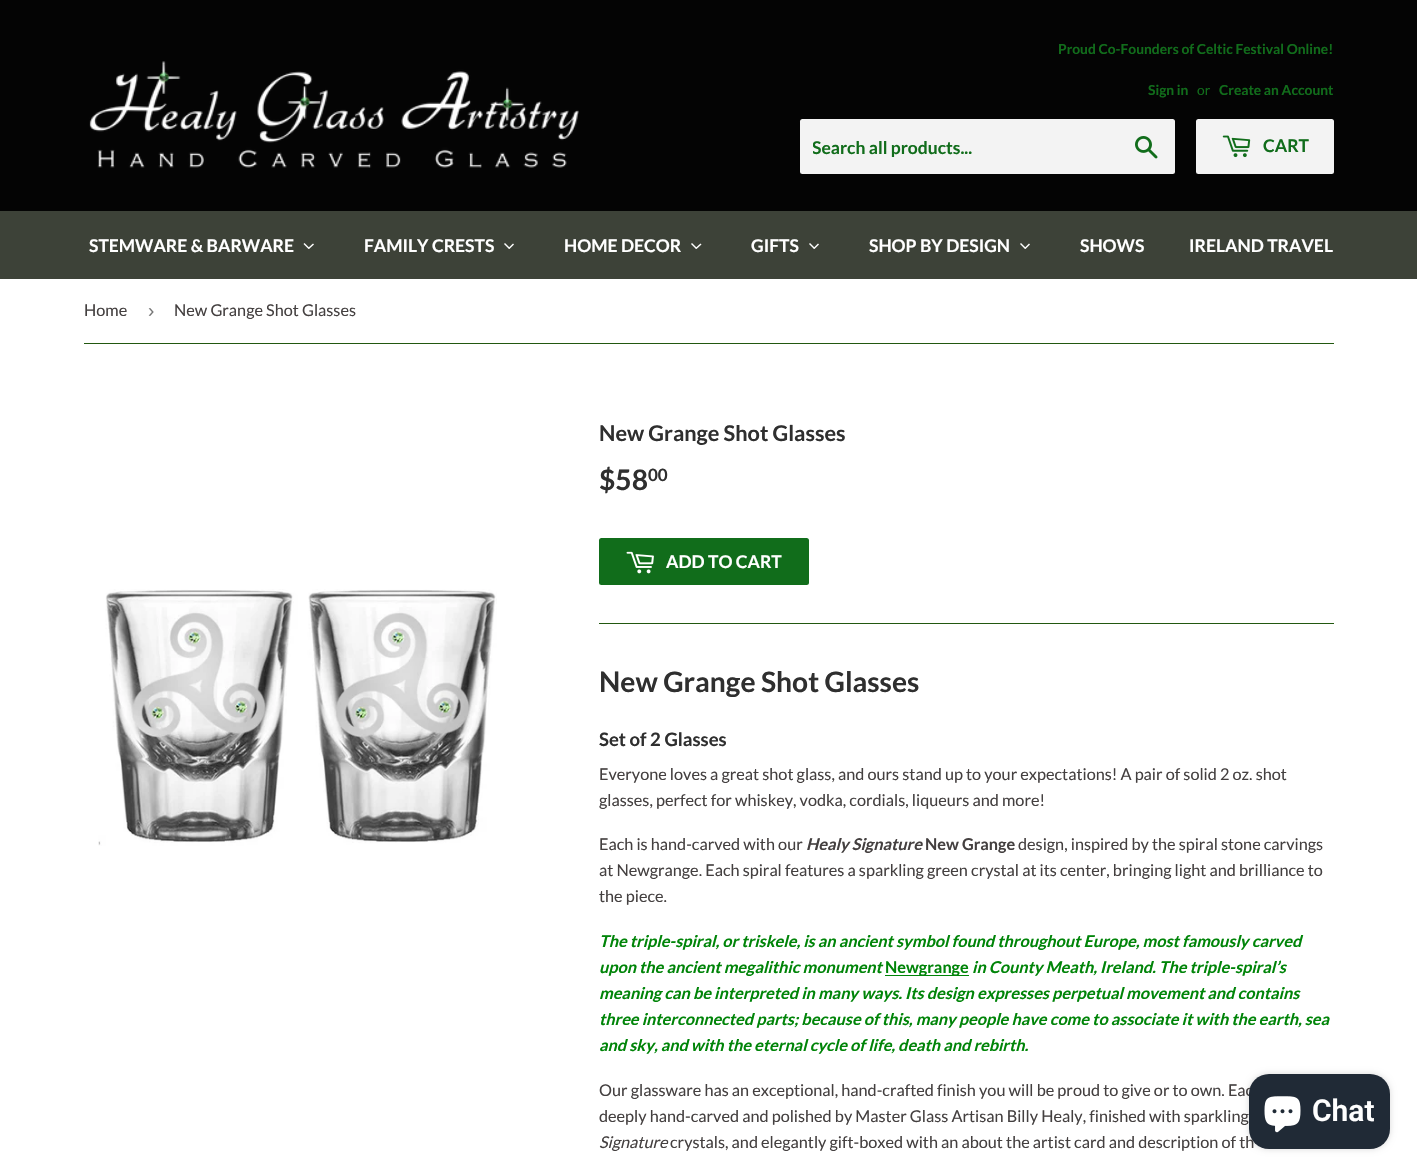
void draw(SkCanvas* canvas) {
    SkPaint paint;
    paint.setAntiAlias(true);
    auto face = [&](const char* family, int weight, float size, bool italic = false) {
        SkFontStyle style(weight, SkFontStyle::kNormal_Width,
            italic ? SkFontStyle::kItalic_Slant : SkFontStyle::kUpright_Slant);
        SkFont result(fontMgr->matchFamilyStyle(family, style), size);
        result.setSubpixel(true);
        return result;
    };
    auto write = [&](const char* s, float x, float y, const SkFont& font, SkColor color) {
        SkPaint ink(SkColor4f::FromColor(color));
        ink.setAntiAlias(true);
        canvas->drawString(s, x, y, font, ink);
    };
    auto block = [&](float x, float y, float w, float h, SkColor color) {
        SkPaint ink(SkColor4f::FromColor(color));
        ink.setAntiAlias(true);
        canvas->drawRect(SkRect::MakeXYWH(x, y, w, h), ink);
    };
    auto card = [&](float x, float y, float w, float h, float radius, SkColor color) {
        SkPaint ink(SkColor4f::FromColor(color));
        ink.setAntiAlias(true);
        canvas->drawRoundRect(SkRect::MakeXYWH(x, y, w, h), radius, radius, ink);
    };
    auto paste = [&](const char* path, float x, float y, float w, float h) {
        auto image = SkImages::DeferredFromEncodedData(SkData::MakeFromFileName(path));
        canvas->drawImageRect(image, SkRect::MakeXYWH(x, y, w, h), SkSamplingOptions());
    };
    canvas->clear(SK_ColorWHITE);
    block(0, 0, 1417, 211, SkColorSetRGB(4, 4, 4));
    paste("pic1.png", 89, 61, 490, 107);
    auto kFont1 = face("Lato", 700, 13.8f);
    write("Proud Co-Founders of Celtic Festival Online!", 1058, 54, kFont1, SkColorSetRGB(17, 109, 27));
    write("Sign in", 1148, 95, kFont1, SkColorSetRGB(17, 109, 27));
    auto kFont2 = face("Lato", 400, 13.8f);
    write("or", 1197, 95, kFont2, SkColorSetRGB(17, 109, 27));
    write("Create an Account", 1219, 95, kFont1, SkColorSetRGB(17, 109, 27));
    card(800, 119, 375, 55, 2.5f, SkColorSetRGB(243, 243, 243));
    canvas->save();
    canvas->clipRect(SkRect::MakeXYWH(813, 136, 301, 22));
    auto kFont3 = face("Lato", 700, 17.5f);
    write("Search all products...", 812, 154, kFont3, SkColorSetRGB(17, 109, 27));
    canvas->restore();
    paste("pic2.png", 1135, 136, 23, 23);
    card(1196, 119, 138, 55, 2.5f, SkColorSetRGB(243, 243, 243));
    paste("pic3.png", 1222, 135, 29, 23);
    write("CART", 1263, 152, kFont3, SkColorSetRGB(17, 109, 27));
    block(0, 211, 1417, 68, SkColorSetRGB(61, 66, 56));
    write("STEMWARE & BARWARE", 89, 252, kFont3, SK_ColorWHITE);
    paint.setColor(SK_ColorWHITE);
    canvas->drawPath(SkPathBuilder().moveTo(313, 243.5f).lineTo(314, 244.5f).lineTo(309, 249).lineTo(308, 248).close().detach(), paint);
    canvas->drawPath(SkPathBuilder().moveTo(304.5f, 243).lineTo(309.5f, 248).lineTo(308.5f, 249).lineTo(303.5f, 244).close().detach(), paint);
    write("FAMILY CRESTS", 364, 252, kFont3, SK_ColorWHITE);
    canvas->drawPath(SkPathBuilder().moveTo(513, 243.5f).lineTo(514, 244.5f).lineTo(509.5f, 249).lineTo(508.5f, 248).close().detach(), paint);
    canvas->drawPath(SkPathBuilder().moveTo(505, 243).lineTo(510, 248).lineTo(509, 249).lineTo(504, 244).close().detach(), paint);
    write("HOME DECOR", 564, 252, kFont3, SK_ColorWHITE);
    canvas->drawPath(SkPathBuilder().moveTo(700.5f, 243.5f).lineTo(701.5f, 244.5f).lineTo(696.5f, 249).lineTo(695.5f, 248).close().detach(), paint);
    canvas->drawPath(SkPathBuilder().moveTo(692, 243).lineTo(697, 248).lineTo(696, 249).lineTo(691, 244).close().detach(), paint);
    write("GIFTS", 751, 252, kFont3, SK_ColorWHITE);
    canvas->drawPath(SkPathBuilder().moveTo(818, 243.5f).lineTo(819, 244.5f).lineTo(814.5f, 249).lineTo(813.5f, 248).close().detach(), paint);
    canvas->drawPath(SkPathBuilder().moveTo(810, 243).lineTo(815, 248).lineTo(814, 249).lineTo(809, 244).close().detach(), paint);
    write("SHOP BY DESIGN", 869, 252, kFont3, SK_ColorWHITE);
    canvas->drawPath(SkPathBuilder().moveTo(1029, 243.5f).lineTo(1030, 244.5f).lineTo(1025.5f, 249).lineTo(1024.5f, 248).close().detach(), paint);
    canvas->drawPath(SkPathBuilder().moveTo(1021, 243).lineTo(1026, 248).lineTo(1025, 249).lineTo(1020, 244).close().detach(), paint);
    write("SHOWS", 1080, 252, kFont3, SK_ColorWHITE);
    write("IRELAND TRAVEL", 1189, 252, kFont3, SK_ColorWHITE);
    block(84, 343, 1250, 1, SkColorSetRGB(34, 88, 16));
    auto kFont4 = face("Lato", 400, 16.25f);
    write("Home", 84, 316, kFont4, SkColorSetRGB(68, 64, 64));
    auto kFont5 = face("Liberation Sans", 400, 19);
    write("›", 148, 317, kFont5, SkColorSetRGB(118, 118, 118));
    write("New Grange Shot Glasses", 174, 316, kFont4, SkColorSetRGB(68, 64, 64));
    paste("pic4.png", 98, 589, 399, 257);
    auto kFont6 = face("Lato", 700, 21.7f);
    write("New Grange Shot Glasses", 599, 441, kFont6, SkColorSetRGB(47, 47, 47));
    auto kFont7 = face("Lato", 700, 28.2f);
    write("$58", 599, 490, kFont7, SkColorSetRGB(47, 47, 47));
    auto kFont8 = face("Lato", 700, 17);
    write("00", 648, 481, kFont8, SkColorSetRGB(47, 47, 47));
    card(599, 538, 210, 47, 2.5f, SkColorSetRGB(17, 109, 27));
    paste("pic5.png", 626, 551, 28, 23);
    write("ADD TO CART", 666, 568, kFont3, SK_ColorWHITE);
    block(599, 623, 735, 1, SkColorSetRGB(34, 88, 16));
    write("New Grange Shot Glasses", 599, 692, kFont7, SkColorSetRGB(47, 47, 47));
    auto kFont9 = face("Lato", 700, 18.5f);
    write("Set of 2 Glasses", 599, 746, kFont9, SkColorSetRGB(47, 47, 47));
    write("Everyone loves a great shot glass, and ours stand up to your expectations! A pair of solid 2 oz. shot", 599, 780, kFont4, SkColorSetRGB(68, 64, 64));
    write("glasses, perfect for whiskey, vodka, cordials, liqueurs and more!", 599, 806, kFont4, SkColorSetRGB(68, 64, 64));
    write("Each is hand-carved with our", 599, 850, kFont4, SkColorSetRGB(68, 64, 64));
    auto kFont10 = face("Lato", 700, 16.25f, true);
    write("Healy Signature", 806, 850, kFont10, SkColorSetRGB(68, 64, 64));
    auto kFont11 = face("Lato", 700, 16.25f);
    write("New Grange", 925, 850, kFont11, SkColorSetRGB(68, 64, 64));
    write("design, inspired by the spiral stone carvings", 1018, 850, kFont4, SkColorSetRGB(68, 64, 64));
    write("at Newgrange. Each spiral features a sparkling green crystal at its center, bringing light and brilliance to", 599, 876, kFont4, SkColorSetRGB(68, 64, 64));
    write("the piece.", 599, 902, kFont4, SkColorSetRGB(68, 64, 64));
    write("The triple-spiral, or triskele, is an ancient symbol found throughout Europe, most famously carved", 599, 947, kFont10, SkColorSetRGB(0, 132, 8));
    write("upon the ancient megalithic monument", 599, 973, kFont10, SkColorSetRGB(0, 132, 8));
    block(885, 975, 84, 1, SkColorSetRGB(0, 132, 8));
    write("Newgrange", 885, 973, kFont11, SkColorSetRGB(0, 132, 8));
    write("in County Meath, Ireland. The triple-spiral’s", 972, 973, kFont10, SkColorSetRGB(0, 132, 8));
    write("meaning can be interpreted in many ways. Its design expresses perpetual movement and contains", 599, 999, kFont10, SkColorSetRGB(0, 132, 8));
    write("three interconnected parts; because of this, many people have come to associate it with the earth, sea", 599, 1025, kFont10, SkColorSetRGB(0, 132, 8));
    write("and sky, and with the eternal cycle of life, death and rebirth.", 599, 1051, kFont10, SkColorSetRGB(0, 132, 8));
    write("Our glassware has an exceptional, hand-crafted finish you will be proud to give or to own. Eac", 599, 1096, kFont4, SkColorSetRGB(68, 64, 64));
    write("deeply hand-carved and polished by Master Glass Artisan Billy Healy, finished with sparkling", 599, 1122, kFont4, SkColorSetRGB(68, 64, 64));
    auto kFont12 = face("Lato", 400, 16.25f, true);
    write("Signature", 599, 1148, kFont12, SkColorSetRGB(68, 64, 64));
    write("crystals, and elegantly gift-boxed with an about the artist card and description of th", 670, 1148, kFont4, SkColorSetRGB(68, 64, 64));
    paint.setColor(SkColorSetARGB(38, 0, 0, 0));
    paint.setMaskFilter(SkMaskFilter::MakeBlur(kNormal_SkBlurStyle, 3));
    canvas->drawRoundRect(SkRect::MakeXYWH(1249, 1074, 141, 75), 20, 20, paint);
    paint.setMaskFilter(nullptr);
    card(1249, 1074, 141, 75, 20, SkColorSetRGB(32, 42, 54));
    paste("pic6.png", 1264, 1096, 37, 37);
    auto kFont13 = face("Roboto", 600, 30);
    write("Chat", 1312, 1121, kFont13, SK_ColorWHITE);
}
